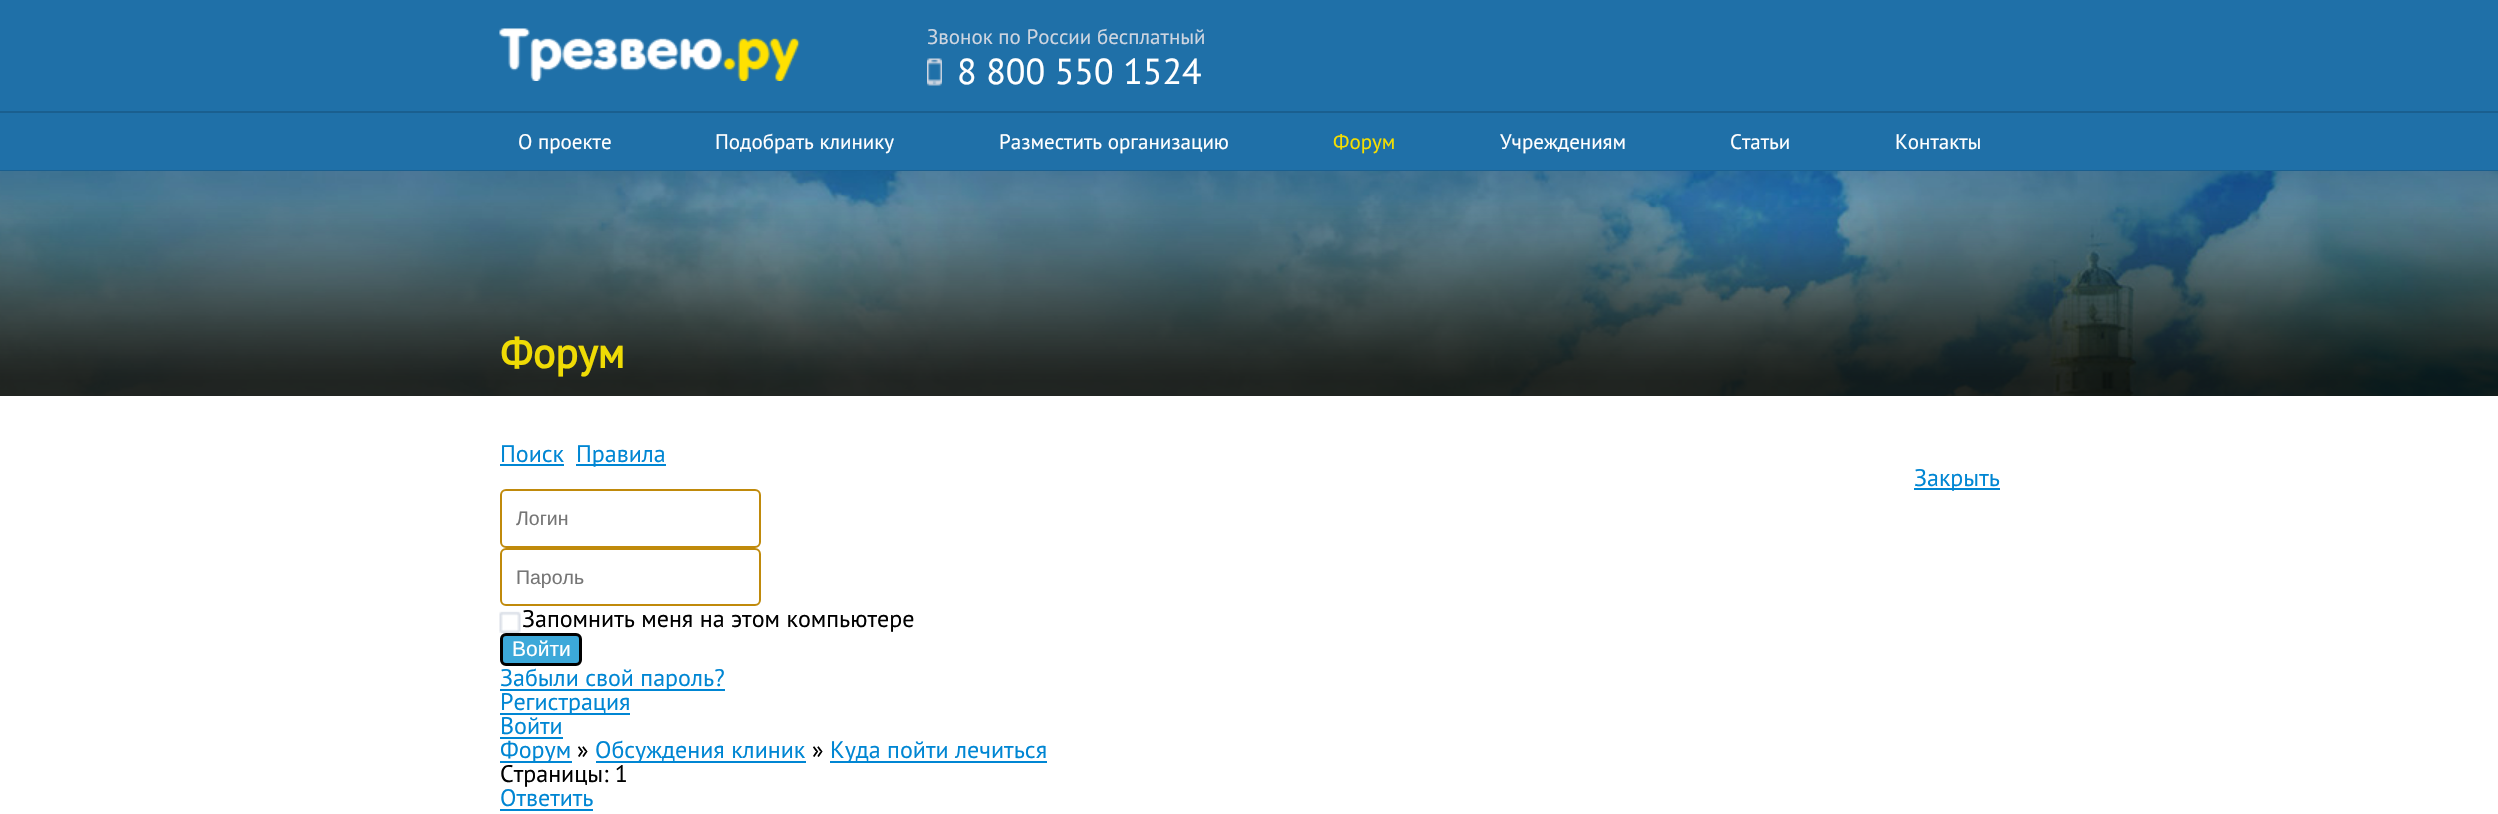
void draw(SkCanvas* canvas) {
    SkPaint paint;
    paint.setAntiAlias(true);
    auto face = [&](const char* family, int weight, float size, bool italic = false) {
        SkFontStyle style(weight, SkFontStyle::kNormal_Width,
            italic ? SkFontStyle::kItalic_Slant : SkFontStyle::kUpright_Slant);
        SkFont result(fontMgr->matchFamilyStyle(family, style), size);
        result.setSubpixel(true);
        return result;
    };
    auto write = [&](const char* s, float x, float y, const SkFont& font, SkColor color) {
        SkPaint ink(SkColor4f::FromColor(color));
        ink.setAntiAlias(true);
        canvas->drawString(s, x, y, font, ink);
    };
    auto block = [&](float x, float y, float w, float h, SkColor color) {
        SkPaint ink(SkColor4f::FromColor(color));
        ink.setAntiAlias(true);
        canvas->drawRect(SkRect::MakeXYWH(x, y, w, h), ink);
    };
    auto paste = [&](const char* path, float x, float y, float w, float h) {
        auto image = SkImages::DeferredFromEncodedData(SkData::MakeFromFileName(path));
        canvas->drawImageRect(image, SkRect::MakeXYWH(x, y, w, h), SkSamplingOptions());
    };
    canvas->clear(SK_ColorWHITE);
    block(0, 0, 2498, 170, SkColorSetRGB(31, 112, 168));
    block(0, 170, 2498, 1, SkColorSetRGB(26, 95, 143));
    block(0, 111, 2498, 2, SkColorSetRGB(26, 95, 143));
    paste("pic1.png", 499, 28, 301, 53);
    auto kFont1 = face("PT Sans", 400, 21);
    write("Звонок по России бесплатный", 927, 44, kFont1, SkColorSetRGB(206, 213, 224));
    paste("pic2.png", 927, 58, 15, 28);
    auto kFont2 = face("PT Sans", 400, 36);
    write("8 800 550 1524", 957, 84, kFont2, SK_ColorWHITE);
    write("О проекте", 518, 149, kFont1, SK_ColorWHITE);
    write("Подобрать клинику", 715, 149, kFont1, SK_ColorWHITE);
    write("Разместить организацию", 999, 149, kFont1, SK_ColorWHITE);
    write("Форум", 1333, 149, kFont1, SkColorSetRGB(246, 223, 0));
    write("Учреждениям", 1500, 149, kFont1, SK_ColorWHITE);
    write("Статьи", 1730, 149, kFont1, SK_ColorWHITE);
    write("Контакты", 1895, 149, kFont1, SK_ColorWHITE);
    paste("pic3.png", 0, 171, 2498, 225);
    paste("pic4.png", 0, 200, 2498, 196);
    auto kFont3 = face("PT Sans", 700, 42);
    write("Форум", 500, 368, kFont3, SkColorSetRGB(239, 219, 5));
    auto kFont4 = face("PT Sans", 400, 24);
    write("Поиск", 500, 462, kFont4, SkColorSetRGB(0, 134, 211));
    block(500, 464, 64, 2, SkColorSetRGB(0, 134, 211));
    block(576, 464, 90, 2, SkColorSetRGB(0, 134, 211));
    write("Правила", 576, 462, kFont4, SkColorSetRGB(0, 134, 211));
    block(1914, 488, 86, 2, SkColorSetRGB(0, 134, 211));
    write("Закрыть", 1914, 486, kFont4, SkColorSetRGB(0, 134, 211));
    paint.setStyle(SkPaint::kStroke_Style);
    paint.setStrokeWidth(2);
    paint.setColor(SkColorSetRGB(192, 138, 11));
    canvas->drawRoundRect(SkRect::MakeXYWH(501, 490, 259, 57), 5, 5, paint);
    auto kFont5 = face("Liberation Sans", 400, 19.5f);
    write("Логин", 516, 525, kFont5, SkColorSetRGB(117, 117, 117));
    canvas->drawRoundRect(SkRect::MakeXYWH(501, 549, 259, 56), 5, 5, paint);
    write("Пароль", 516, 584, kFont5, SkColorSetRGB(117, 117, 117));
    paste("pic5.png", 499, 611, 22, 22);
    write("Запомнить меня на этом компьютере", 522, 627, kFont4, SK_ColorBLACK);
    paint.setStyle(SkPaint::kFill_Style);
    paint.setColor(SkColorSetRGB(60, 168, 217));
    canvas->drawRoundRect(SkRect::MakeXYWH(501.5f, 634.5f, 79, 30), 4.5f, 4.5f, paint);
    paint.setStyle(SkPaint::kStroke_Style);
    paint.setStrokeWidth(3);
    paint.setColor(SK_ColorBLACK);
    canvas->drawRoundRect(SkRect::MakeXYWH(501.5f, 634.5f, 79, 30), 4.5f, 4.5f, paint);
    auto kFont6 = face("Liberation Sans", 400, 21);
    write("Войти", 512, 656, kFont6, SK_ColorWHITE);
    block(500, 689, 225, 2, SkColorSetRGB(0, 134, 211));
    write("Забыли свой пароль?", 500, 686, kFont4, SkColorSetRGB(0, 134, 211));
    block(500, 713, 130, 2, SkColorSetRGB(0, 134, 211));
    write("Регистрация", 500, 710, kFont4, SkColorSetRGB(0, 134, 211));
    write("Войти", 500, 734, kFont4, SkColorSetRGB(0, 134, 211));
    block(500, 737, 63, 2, SkColorSetRGB(0, 134, 211));
    block(500, 761, 72, 2, SkColorSetRGB(0, 134, 211));
    write("Форум", 500, 758, kFont4, SkColorSetRGB(0, 134, 211));
    write("»", 577, 758, kFont4, SK_ColorBLACK);
    block(596, 761, 210, 2, SkColorSetRGB(0, 134, 211));
    write("Обсуждения клиник", 595, 758, kFont4, SkColorSetRGB(0, 134, 211));
    write("»", 812, 758, kFont4, SK_ColorBLACK);
    block(830, 761, 217, 2, SkColorSetRGB(0, 134, 211));
    write("Куда пойти лечиться", 830, 758, kFont4, SkColorSetRGB(0, 134, 211));
    write("Страницы: 1", 500, 782, kFont4, SK_ColorBLACK);
    write("Ответить", 500, 806, kFont4, SkColorSetRGB(0, 134, 211));
    block(500, 809, 93, 2, SkColorSetRGB(0, 134, 211));
}
